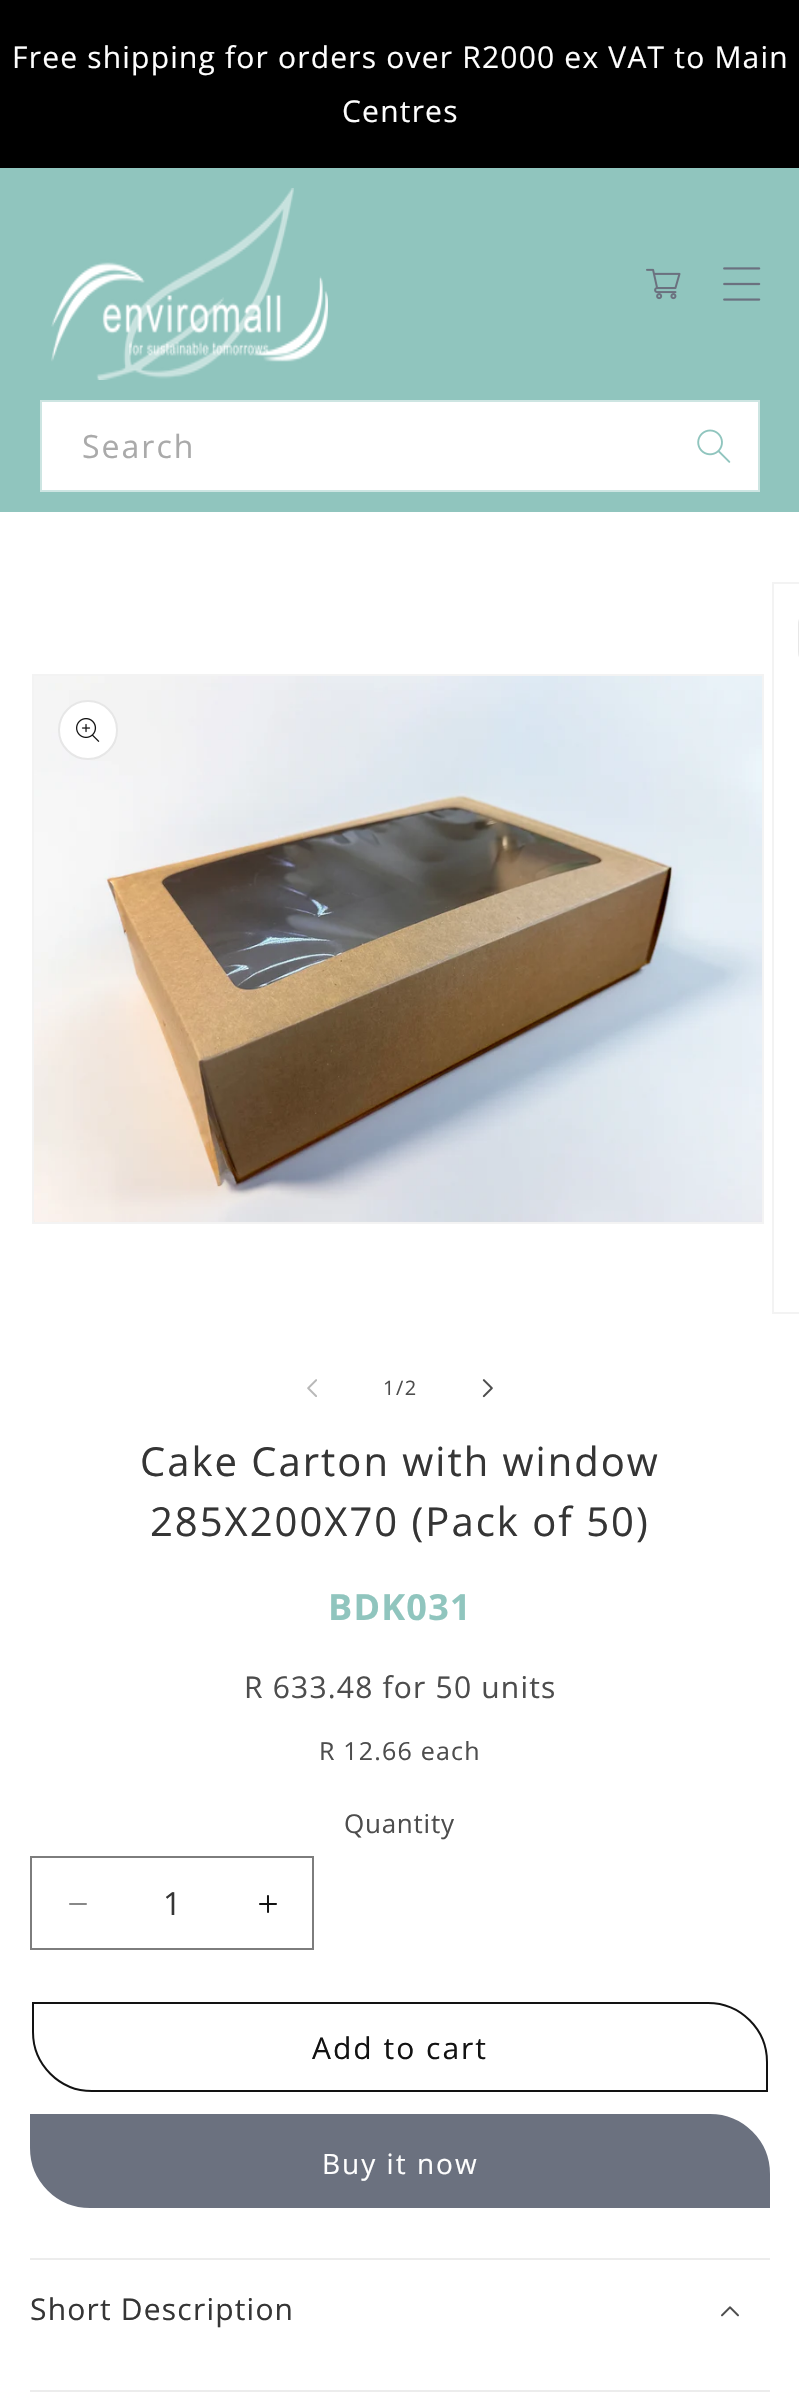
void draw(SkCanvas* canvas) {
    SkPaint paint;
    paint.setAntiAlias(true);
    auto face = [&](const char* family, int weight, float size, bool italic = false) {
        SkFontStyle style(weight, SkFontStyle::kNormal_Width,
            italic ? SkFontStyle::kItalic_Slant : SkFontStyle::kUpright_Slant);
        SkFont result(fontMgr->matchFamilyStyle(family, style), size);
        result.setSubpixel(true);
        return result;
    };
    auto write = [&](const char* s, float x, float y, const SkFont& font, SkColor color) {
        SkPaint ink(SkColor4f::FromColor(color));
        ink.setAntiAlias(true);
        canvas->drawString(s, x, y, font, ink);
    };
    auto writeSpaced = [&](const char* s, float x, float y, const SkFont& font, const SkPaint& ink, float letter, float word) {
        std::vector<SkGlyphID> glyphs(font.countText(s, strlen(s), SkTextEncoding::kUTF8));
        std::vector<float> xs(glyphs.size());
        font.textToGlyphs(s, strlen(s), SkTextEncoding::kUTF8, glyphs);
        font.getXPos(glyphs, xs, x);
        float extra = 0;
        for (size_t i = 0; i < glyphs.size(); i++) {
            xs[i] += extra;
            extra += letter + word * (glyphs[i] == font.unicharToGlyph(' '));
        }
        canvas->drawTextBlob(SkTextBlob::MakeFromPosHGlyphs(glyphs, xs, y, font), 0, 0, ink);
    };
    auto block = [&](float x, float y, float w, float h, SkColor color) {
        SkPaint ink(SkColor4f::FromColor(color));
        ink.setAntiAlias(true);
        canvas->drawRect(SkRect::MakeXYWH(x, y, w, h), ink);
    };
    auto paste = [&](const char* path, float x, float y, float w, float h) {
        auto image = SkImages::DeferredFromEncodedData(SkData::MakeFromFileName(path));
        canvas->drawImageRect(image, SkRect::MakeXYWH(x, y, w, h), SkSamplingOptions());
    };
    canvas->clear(SK_ColorWHITE);
    block(0, 0, 799, 168, SK_ColorBLACK);
    auto kFont1 = face("Open Sans", 400, 30);
    paint.setColor(SkColorSetRGB(254, 254, 254));
    writeSpaced("Free shipping for orders over R2000 ex VAT to Main", 12, 68, kFont1, paint, 1.2f, 0);
    writeSpaced("Centres", 342, 122, kFont1, paint, 1.2f, 0);
    block(0, 168, 799, 344, SkColorSetRGB(144, 197, 190));
    paste("pic1.png", 51, 188, 277, 192);
    paste("pic2.png", 646, 268, 35, 32);
    paste("pic3.png", 723, 267, 38, 34);
    block(42, 402, 716, 88, SK_ColorWHITE);
    paste("pic4.png", 697, 429, 34, 34);
    paint.setStyle(SkPaint::kStroke_Style);
    paint.setStrokeWidth(2);
    paint.setColor(SkColorSetRGB(205, 229, 226));
    canvas->drawRect(SkRect::MakeXYWH(41, 401, 718, 90), paint);
    auto kFont2 = face("Open Sans", 400, 32);
    paint.setStyle(SkPaint::kFill_Style);
    paint.setColor(SkColorSetRGB(170, 170, 170));
    writeSpaced("Search", 82, 458, kFont2, paint, 2, 0);
    paint.setStyle(SkPaint::kStroke_Style);
    paint.setColor(SkColorSetRGB(243, 243, 243));
    canvas->drawRect(SkRect::MakeXYWH(33, 675, 730, 548), paint);
    paste("pic5.png", 34, 676, 728, 546);
    paint.setStyle(SkPaint::kFill_Style);
    paint.setColor(SK_ColorWHITE);
    canvas->drawCircle(88, 730, 30, paint);
    paint.setStyle(SkPaint::kStroke_Style);
    paint.setColor(SkColorSetARGB(26, 18, 18, 18));
    canvas->drawCircle(88, 730, 29, paint);
    paste("pic6.png", 76, 718, 24, 24);
    paint.setColor(SkColorSetRGB(243, 243, 243));
    canvas->drawRect(SkRect::MakeXYWH(773, 583, 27, 730), paint);
    paint.setColor(SkColorSetRGB(231, 231, 231));
    canvas->drawRoundRect(SkRect::MakeXYWH(799, 609, 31, 58), 29, 29, paint);
    paste("pic7.png", 307, 1379, 10, 18);
    auto kFont3 = face("Open Sans", 400, 20);
    paint.setStyle(SkPaint::kFill_Style);
    paint.setColor(SkColorSetRGB(77, 77, 77));
    writeSpaced("1/2", 383, 1395, kFont3, paint, 1.5f, 0);
    paste("pic8.png", 482, 1379, 11, 19);
    auto kFont4 = face("Open Sans", 400, 40);
    paint.setColor(SkColorSetRGB(53, 53, 53));
    writeSpaced("Cake Carton with window", 140, 1476, kFont4, paint, 2, 0);
    writeSpaced("285X200X70 (Pack of 50)", 150, 1536, kFont4, paint, 2, 0);
    auto kFont5 = face("Open Sans", 700, 36);
    paint.setColor(SkColorSetRGB(144, 197, 190));
    writeSpaced("BDK031", 328, 1620, kFont5, paint, 1.2f, 0);
    paint.setColor(SkColorSetRGB(77, 77, 77));
    writeSpaced("R 633.48 for 50 units", 244, 1698, kFont1, paint, 1.2f, 0);
    auto kFont6 = face("Open Sans", 400, 25);
    writeSpaced("R 12.66 each", 319, 1760, kFont6, paint, 1.2f, 0);
    auto kFont7 = face("Open Sans", 400, 26);
    writeSpaced("Quantity", 344, 1833, kFont7, paint, 0.75f, 0);
    paste("pic9.png", 69, 1903, 18, 2);
    paste("pic10.png", 259, 1895, 18, 18);
    paint.setStyle(SkPaint::kStroke_Style);
    paint.setColor(SkColorSetRGB(125, 125, 125));
    canvas->drawRect(SkRect::MakeXYWH(31, 1857, 282, 92), paint);
    write("1", 163, 1915, kFont2, SkColorSetRGB(53, 53, 53));
    paint.setColor(SkColorSetRGB(18, 18, 18));
    canvas->drawPath(SkPathBuilder().moveTo(33, 2003).lineTo(708, 2003).cubicTo(740.5f, 2003, 767, 2029.5f, 767, 2062).lineTo(767, 2091).lineTo(92, 2091).cubicTo(59.5f, 2091, 33, 2064.5f, 33, 2032).close().detach(), paint);
    paint.setStyle(SkPaint::kFill_Style);
    writeSpaced("Add to cart", 312, 2059, kFont1, paint, 2, 0);
    paint.setColor(SkColorSetRGB(107, 113, 127));
    canvas->drawPath(SkPathBuilder().moveTo(33, 2117).lineTo(710, 2117).cubicTo(741.5f, 2117, 767, 2142.5f, 767, 2174).lineTo(767, 2205).lineTo(90, 2205).cubicTo(58.5f, 2205, 33, 2179.5f, 33, 2148).close().detach(), paint);
    paint.setStyle(SkPaint::kStroke_Style);
    paint.setStrokeWidth(6);
    canvas->drawPath(SkPathBuilder().moveTo(33, 2117).lineTo(710, 2117).cubicTo(741.5f, 2117, 767, 2142.5f, 767, 2174).lineTo(767, 2205).lineTo(90, 2205).cubicTo(58.5f, 2205, 33, 2179.5f, 33, 2148).close().detach(), paint);
    auto kFont8 = face("Open Sans", 400, 28);
    paint.setStyle(SkPaint::kFill_Style);
    paint.setColor(SkColorSetRGB(254, 254, 254));
    writeSpaced("Buy it now", 322, 2174, kFont8, paint, 2, 0);
    block(30, 2258, 740, 2, SkColorSetRGB(236, 236, 236));
    block(30, 2390, 740, 2, SkColorSetRGB(236, 236, 236));
    paint.setColor(SkColorSetRGB(53, 53, 53));
    writeSpaced("Short Description", 30, 2320, kFont1, paint, 1.2f, 0);
    paste("pic11.png", 721, 2306, 18, 11);
}
